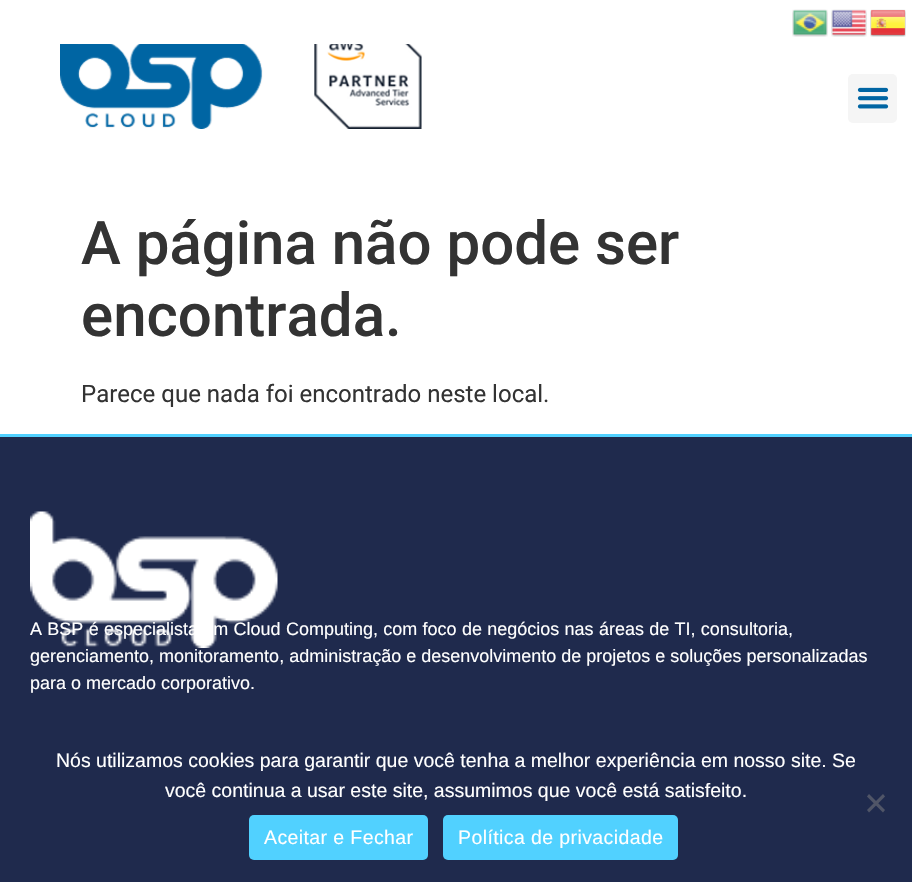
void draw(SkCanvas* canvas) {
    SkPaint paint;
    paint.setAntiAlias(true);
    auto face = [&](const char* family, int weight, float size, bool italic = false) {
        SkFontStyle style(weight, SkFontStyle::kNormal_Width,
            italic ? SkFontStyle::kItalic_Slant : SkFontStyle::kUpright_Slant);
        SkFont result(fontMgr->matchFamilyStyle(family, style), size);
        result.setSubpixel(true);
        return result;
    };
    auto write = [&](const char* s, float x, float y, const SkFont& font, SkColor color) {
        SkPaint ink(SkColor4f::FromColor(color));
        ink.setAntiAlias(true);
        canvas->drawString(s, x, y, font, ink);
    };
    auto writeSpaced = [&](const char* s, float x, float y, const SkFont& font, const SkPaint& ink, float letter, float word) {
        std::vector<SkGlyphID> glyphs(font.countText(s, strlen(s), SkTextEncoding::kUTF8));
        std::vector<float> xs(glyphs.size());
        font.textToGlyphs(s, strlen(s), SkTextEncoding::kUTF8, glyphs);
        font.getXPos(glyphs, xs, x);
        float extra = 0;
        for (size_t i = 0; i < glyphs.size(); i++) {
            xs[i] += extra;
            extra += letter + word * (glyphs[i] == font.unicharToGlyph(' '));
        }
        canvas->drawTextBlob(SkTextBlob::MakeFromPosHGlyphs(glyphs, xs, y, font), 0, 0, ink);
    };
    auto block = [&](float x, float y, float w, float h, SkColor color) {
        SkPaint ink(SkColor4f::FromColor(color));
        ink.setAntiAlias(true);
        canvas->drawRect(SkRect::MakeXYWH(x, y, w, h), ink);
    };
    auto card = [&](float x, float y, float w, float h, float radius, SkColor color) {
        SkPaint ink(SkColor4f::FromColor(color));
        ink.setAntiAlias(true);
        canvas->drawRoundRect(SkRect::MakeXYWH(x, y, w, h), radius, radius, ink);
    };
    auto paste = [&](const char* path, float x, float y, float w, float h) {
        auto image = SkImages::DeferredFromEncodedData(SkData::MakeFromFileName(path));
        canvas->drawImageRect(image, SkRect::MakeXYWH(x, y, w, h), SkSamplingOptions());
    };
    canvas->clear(SK_ColorWHITE);
    paste("pic1.png", 792, 9, 36, 28);
    paste("pic2.png", 831, 9, 36, 28);
    paste("pic3.png", 870, 9, 36, 28);
    paste("pic4.png", 60, 44, 362, 85);
    card(848, 74, 49, 49, 5, SkColorSetRGB(245, 245, 245));
    paste("pic5.png", 857, 87, 32, 22);
    auto kFont1 = face("Roboto", 500, 60);
    write("A página não pode ser", 81, 264, kFont1, SkColorSetRGB(51, 51, 51));
    write("encontrada.", 81, 336, kFont1, SkColorSetRGB(51, 51, 51));
    auto kFont2 = face("Roboto", 400, 24);
    write("Parece que nada foi encontrado neste local.", 81, 402, kFont2, SkColorSetRGB(51, 51, 51));
    block(0, 437, 912, 445, SkColorSetRGB(31, 42, 77));
    block(0, 434, 912, 3, SkColorSetRGB(81, 209, 255));
    paste("pic6.png", 30, 511, 248, 137);
    auto kFont3 = face("Liberation Sans", 400, 18);
    paint.setColor(SK_ColorWHITE);
    writeSpaced("A BSP é especialista em Cloud Computing, com foco de negócios nas áreas de TI, consultoria,", 30, 635, kFont3, paint, 0, 0.3f);
    write("gerenciamento, monitoramento, administração e desenvolvimento de projetos e soluções personalizadas", 30, 662, kFont3, SK_ColorWHITE);
    write("para o mercado corporativo.", 30, 689, kFont3, SK_ColorWHITE);
    auto kFont4 = face("Liberation Sans", 400, 19.5f);
    write("Nós utilizamos cookies para garantir que você tenha a melhor experiência em nosso site. Se", 56, 767, kFont4, SK_ColorWHITE);
    write("você continua a usar este site, assumimos que você está satisfeito.", 165, 797, kFont4, SK_ColorWHITE);
    paint.setColor(SkColorSetRGB(80, 85, 103));
    canvas->drawPath(SkPathBuilder().moveTo(883, 794).lineTo(885, 796.5f).lineTo(869, 812.5f).lineTo(867, 810).close().detach(), paint);
    canvas->drawPath(SkPathBuilder().moveTo(867, 796.5f).lineTo(869, 794).lineTo(885, 810).lineTo(883, 812.5f).close().detach(), paint);
    card(249, 815, 179, 45, 5, SkColorSetRGB(81, 209, 255));
    paint.setColor(SK_ColorWHITE);
    writeSpaced("Aceitar e Fechar", 264, 844, kFont4, paint, 0.4f, 0);
    card(443, 815, 235, 45, 5, SkColorSetRGB(81, 209, 255));
    writeSpaced("Política de privacidade", 458, 844, kFont4, paint, 0.4f, 0);
}
